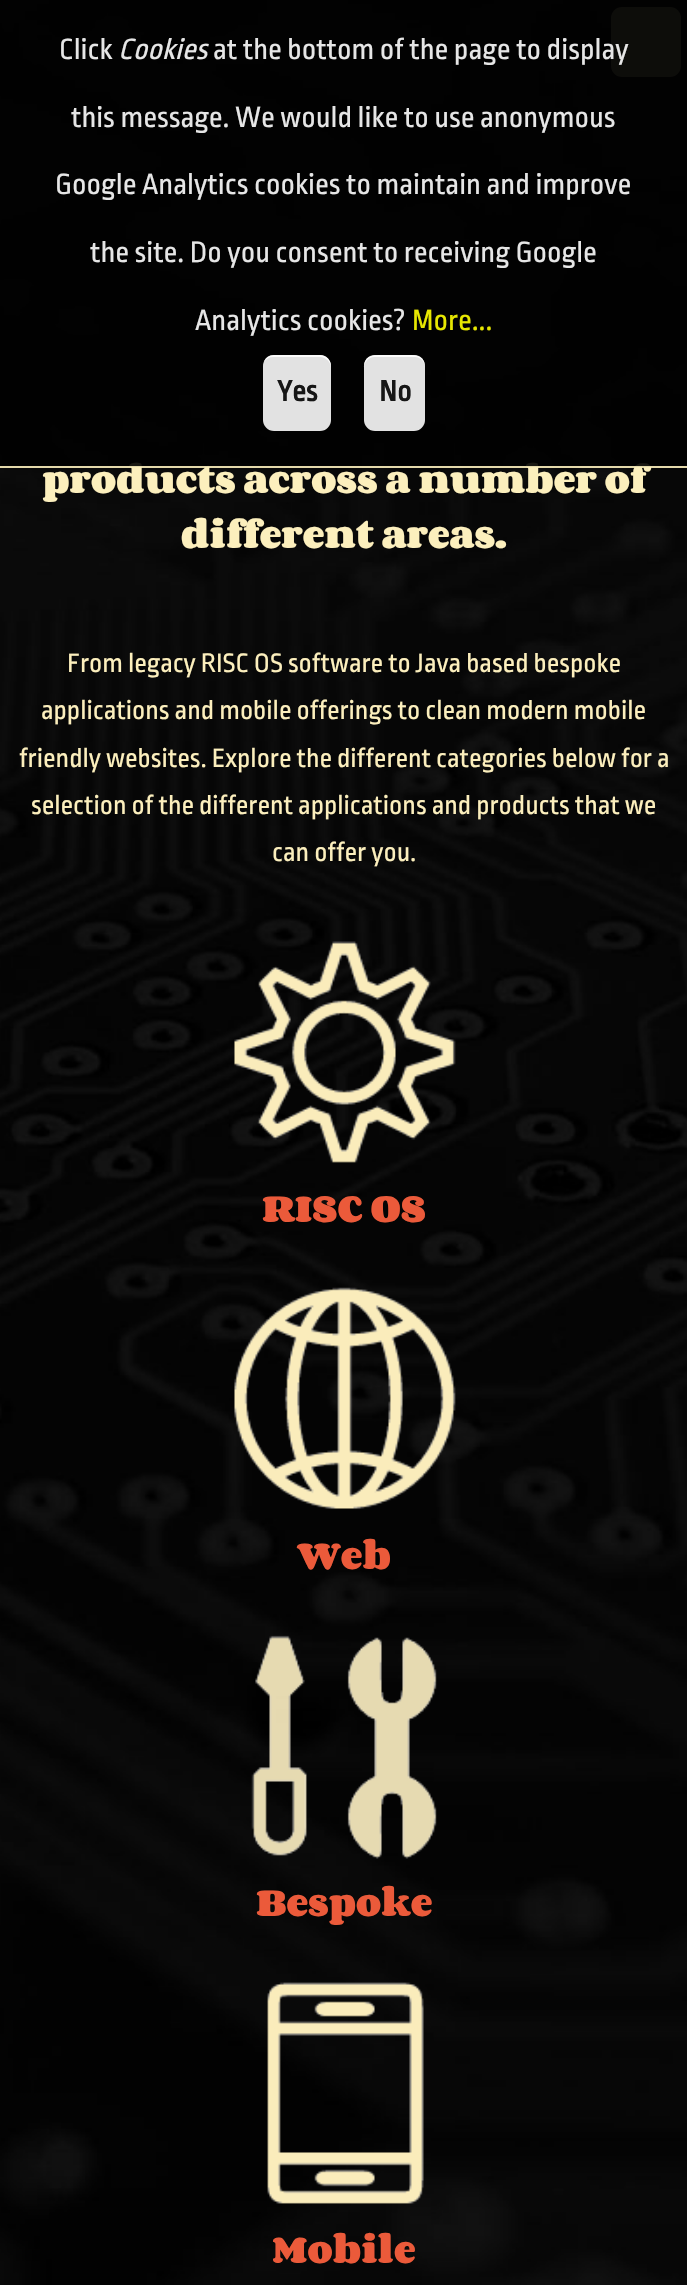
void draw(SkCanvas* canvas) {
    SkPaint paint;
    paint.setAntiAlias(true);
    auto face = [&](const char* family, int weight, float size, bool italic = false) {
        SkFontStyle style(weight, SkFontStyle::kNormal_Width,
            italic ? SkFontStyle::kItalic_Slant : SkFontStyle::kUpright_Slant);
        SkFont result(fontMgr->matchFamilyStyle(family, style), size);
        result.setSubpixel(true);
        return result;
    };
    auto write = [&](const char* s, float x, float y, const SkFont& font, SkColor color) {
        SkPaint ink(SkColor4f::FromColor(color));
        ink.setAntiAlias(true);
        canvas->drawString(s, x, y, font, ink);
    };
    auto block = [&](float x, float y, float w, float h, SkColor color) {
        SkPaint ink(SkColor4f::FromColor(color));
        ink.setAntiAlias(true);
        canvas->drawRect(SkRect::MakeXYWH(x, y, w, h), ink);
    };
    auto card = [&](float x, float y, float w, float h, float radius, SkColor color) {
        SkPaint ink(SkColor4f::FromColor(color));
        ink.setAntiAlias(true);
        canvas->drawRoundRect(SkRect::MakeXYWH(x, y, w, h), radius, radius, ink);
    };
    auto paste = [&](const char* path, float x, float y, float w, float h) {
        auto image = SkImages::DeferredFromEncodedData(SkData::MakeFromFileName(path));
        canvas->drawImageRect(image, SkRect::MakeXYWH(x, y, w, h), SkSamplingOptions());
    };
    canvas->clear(SK_ColorWHITE);
    paste("pic1.png", 0, 0, 687, 2285);
    card(611, 7, 70, 70, 11, SkColorSetARGB(128, 252, 239, 189));
    auto kFont1 = face("Corben", 700, 32.75f);
    write("products across a number of", 42, 493, kFont1, SkColorSetRGB(252, 239, 189));
    block(0, 0, 687, 467, SkColorSetARGB(230, 0, 0, 0));
    block(0, 466, 687, 2, SkColorSetARGB(230, 252, 239, 189));
    auto kFont2 = face("Ropa Sans", 400, 30.75f);
    write("Click", 59, 59, kFont2, SkColorSetRGB(230, 230, 230));
    auto kFont3 = face("Ropa Sans", 400, 30.75f, true);
    write("Cookies", 118, 59, kFont3, SkColorSetRGB(230, 230, 230));
    write("at the bottom of the page to display", 213, 59, kFont2, SkColorSetRGB(230, 230, 230));
    write("this message. We would like to use anonymous", 71, 127, kFont2, SkColorSetRGB(230, 230, 230));
    write("Google Analytics cookies to maintain and improve", 55, 194, kFont2, SkColorSetRGB(230, 230, 230));
    write("the site. Do you consent to receiving Google", 90, 262, kFont2, SkColorSetRGB(230, 230, 230));
    write("Analytics cookies?", 195, 330, kFont2, SkColorSetRGB(230, 230, 230));
    write("More...", 412, 330, kFont2, SkColorSetRGB(231, 231, 1));
    card(263, 355, 68, 76, 11, SkColorSetARGB(230, 249, 249, 249));
    paint.setColor(SkColorSetARGB(230, 255, 255, 255));
    canvas->drawPath(SkPathBuilder().moveTo(273, 357).lineTo(320, 357).cubicTo(326, 357, 331, 362, 331, 368).lineTo(331, 366).cubicTo(331, 360, 326, 355, 320, 355).lineTo(274, 355).cubicTo(269, 355, 265, 358, 264, 362).cubicTo(266, 359, 269, 357, 273, 357).close().detach(), paint);
    auto kFont4 = face("Ropa Sans", 700, 30.75f);
    write("Yes", 277, 401, kFont4, SkColorSetRGB(22, 22, 22));
    card(364, 355, 61, 76, 11, SkColorSetARGB(230, 249, 249, 249));
    canvas->drawPath(SkPathBuilder().moveTo(374, 357).lineTo(415, 357).cubicTo(421, 357, 425, 362, 425, 368).cubicTo(425, 356, 418, 355, 408, 355).lineTo(382, 355).cubicTo(371, 355, 364, 356, 364, 368).cubicTo(364, 362, 369, 357, 374, 357).close().detach(), paint);
    write("No", 379, 401, kFont4, SkColorSetRGB(22, 22, 22));
    write("different areas.", 181, 548, kFont1, SkColorSetRGB(252, 239, 189));
    auto kFont5 = face("Ropa Sans", 400, 28);
    write("From legacy RISC OS software to Java based bespoke", 67, 672, kFont5, SkColorSetRGB(252, 239, 189));
    write("applications and mobile offerings to clean modern mobile", 41, 719, kFont5, SkColorSetRGB(252, 239, 189));
    write("friendly websites. Explore the different categories below for a", 19, 767, kFont5, SkColorSetRGB(252, 239, 189));
    write("selection of the different applications and products that we", 31, 814, kFont5, SkColorSetRGB(252, 239, 189));
    write("can offer you.", 272, 861, kFont5, SkColorSetRGB(252, 239, 189));
    paste("pic2.png", 234, 941, 222, 222);
    write("RISC OS", 262, 1222, kFont1, SkColorSetRGB(235, 90, 58));
    paste("pic3.png", 234, 1287, 222, 222);
    write("Web", 297, 1569, kFont1, SkColorSetRGB(235, 90, 58));
    paste("pic4.png", 251, 1635, 186, 224);
    write("Bespoke", 256, 1916, kFont1, SkColorSetRGB(235, 90, 58));
    paste("pic5.png", 267, 1982, 157, 222);
    write("Mobile", 272, 2263, kFont1, SkColorSetRGB(235, 90, 58));
}
